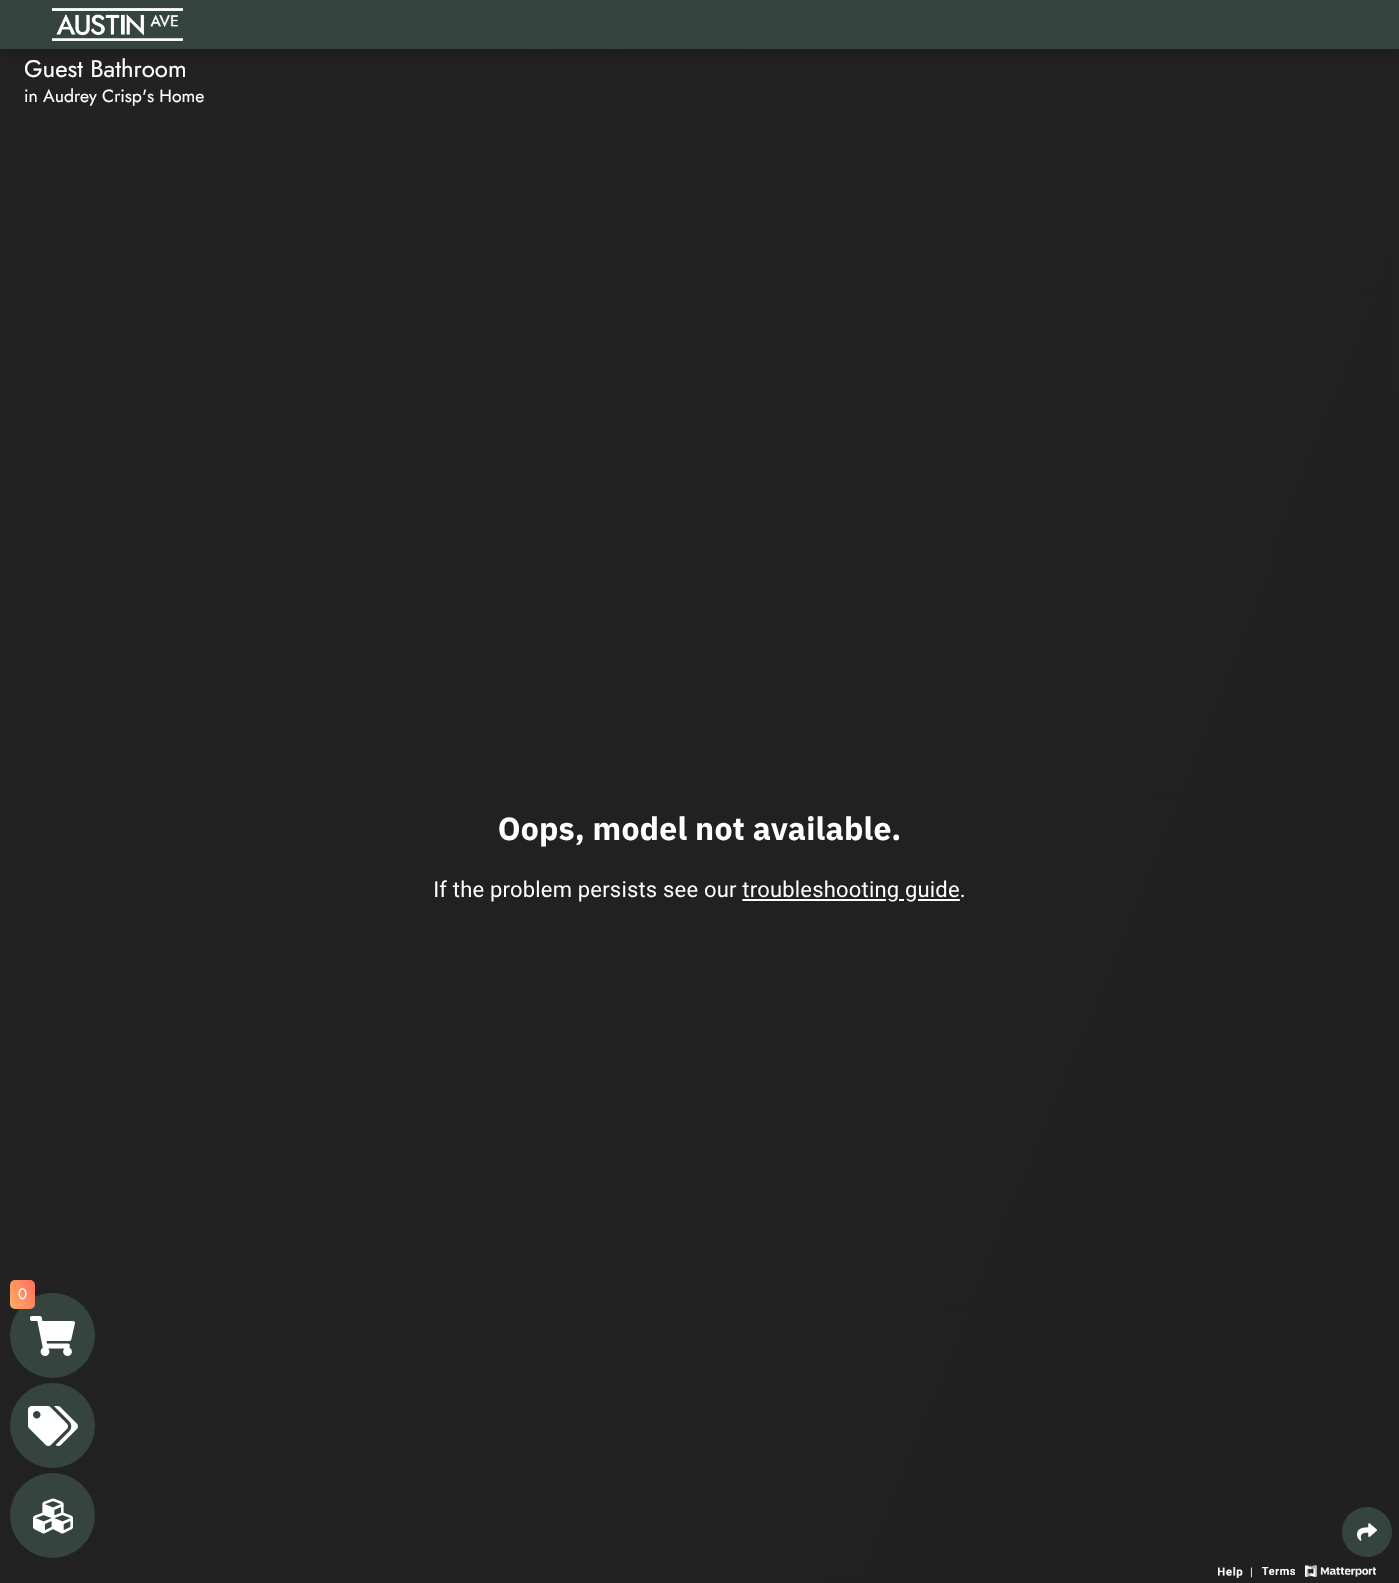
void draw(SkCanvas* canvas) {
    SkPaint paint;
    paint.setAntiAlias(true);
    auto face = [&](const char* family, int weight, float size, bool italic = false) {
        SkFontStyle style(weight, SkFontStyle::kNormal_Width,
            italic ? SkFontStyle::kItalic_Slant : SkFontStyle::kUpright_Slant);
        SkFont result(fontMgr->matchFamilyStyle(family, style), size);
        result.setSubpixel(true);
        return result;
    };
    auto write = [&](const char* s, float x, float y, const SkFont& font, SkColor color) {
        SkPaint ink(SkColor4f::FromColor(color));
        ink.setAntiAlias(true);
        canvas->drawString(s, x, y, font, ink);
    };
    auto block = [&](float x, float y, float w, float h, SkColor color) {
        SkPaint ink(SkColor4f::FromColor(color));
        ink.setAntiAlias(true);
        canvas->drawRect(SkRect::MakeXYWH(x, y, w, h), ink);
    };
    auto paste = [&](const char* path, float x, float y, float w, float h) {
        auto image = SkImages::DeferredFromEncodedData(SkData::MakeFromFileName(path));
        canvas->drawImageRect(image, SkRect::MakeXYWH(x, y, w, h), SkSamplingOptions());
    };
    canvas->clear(SK_ColorWHITE);
    paste("pic2.png", 0, 49, 1399, 1534);
    paint.setColor(SkColorSetARGB(38, 0, 0, 0));
    paint.setMaskFilter(SkMaskFilter::MakeBlur(kNormal_SkBlurStyle, 5));
    canvas->drawRect(SkRect::MakeXYWH(5, 12, 1389, 39), paint);
    paint.setMaskFilter(nullptr);
    paint.setColor(SkColorSetARGB(31, 0, 0, 0));
    paint.setMaskFilter(SkMaskFilter::MakeBlur(kNormal_SkBlurStyle, 9));
    canvas->drawRect(SkRect::MakeXYWH(0, 4, 1399, 49), paint);
    paint.setMaskFilter(nullptr);
    block(0, 0, 1399, 49, SkColorSetRGB(54, 68, 64));
    paste("pic1.png", 52, 8, 131, 33);
    auto kFont1 = face("Jost", 400, 24);
    write("Guest Bathroom", 24, 77, kFont1, SK_ColorWHITE);
    auto kFont2 = face("Jost", 400, 17.6f);
    write("in Audrey Crisp's Home", 24, 102, kFont2, SK_ColorWHITE);
    paint.setColor(SkColorSetRGB(54, 68, 64));
    canvas->drawCircle(52.5f, 1335.5f, 42.5f, paint);
    {
        const SkColor colors[] = {SkColorSetRGB(255, 174, 97), SkColorSetRGB(255, 111, 97)};
        const float stops[] = {0, 1};
        const SkPoint ends[] = {{6.8f, 1304}, {38, 1285}};
        paint.setShader(SkGradientShader::MakeLinear(ends, colors, stops, 2, SkTileMode::kClamp));
        paint.setAlpha(255);
    }
    canvas->drawRoundRect(SkRect::MakeXYWH(10, 1280, 25, 29), 5, 5, paint);
    auto kFont3 = face("Jost", 400, 15);
    write("0", 18, 1299, kFont3, SK_ColorWHITE);
    paste("pic3.png", 30, 1316, 45, 40);
    paint.setShader(nullptr);
    paint.setColor(SkColorSetRGB(54, 68, 64));
    canvas->drawCircle(52.5f, 1425.5f, 42.5f, paint);
    paste("pic4.png", 28, 1406, 50, 40);
    canvas->drawCircle(52.5f, 1515.5f, 42.5f, paint);
    paste("pic5.png", 33, 1498, 40, 36);
    canvas->drawCircle(1367, 1532, 25, paint);
    paste("pic6.png", 1357, 1523, 20, 18);
    paste("pic7.png", 1218, 1567, 34, 11);
    paste("pic8.png", 1262, 1567, 33, 8);
    paste("pic9.png", 1305, 1565, 71, 12);
}
